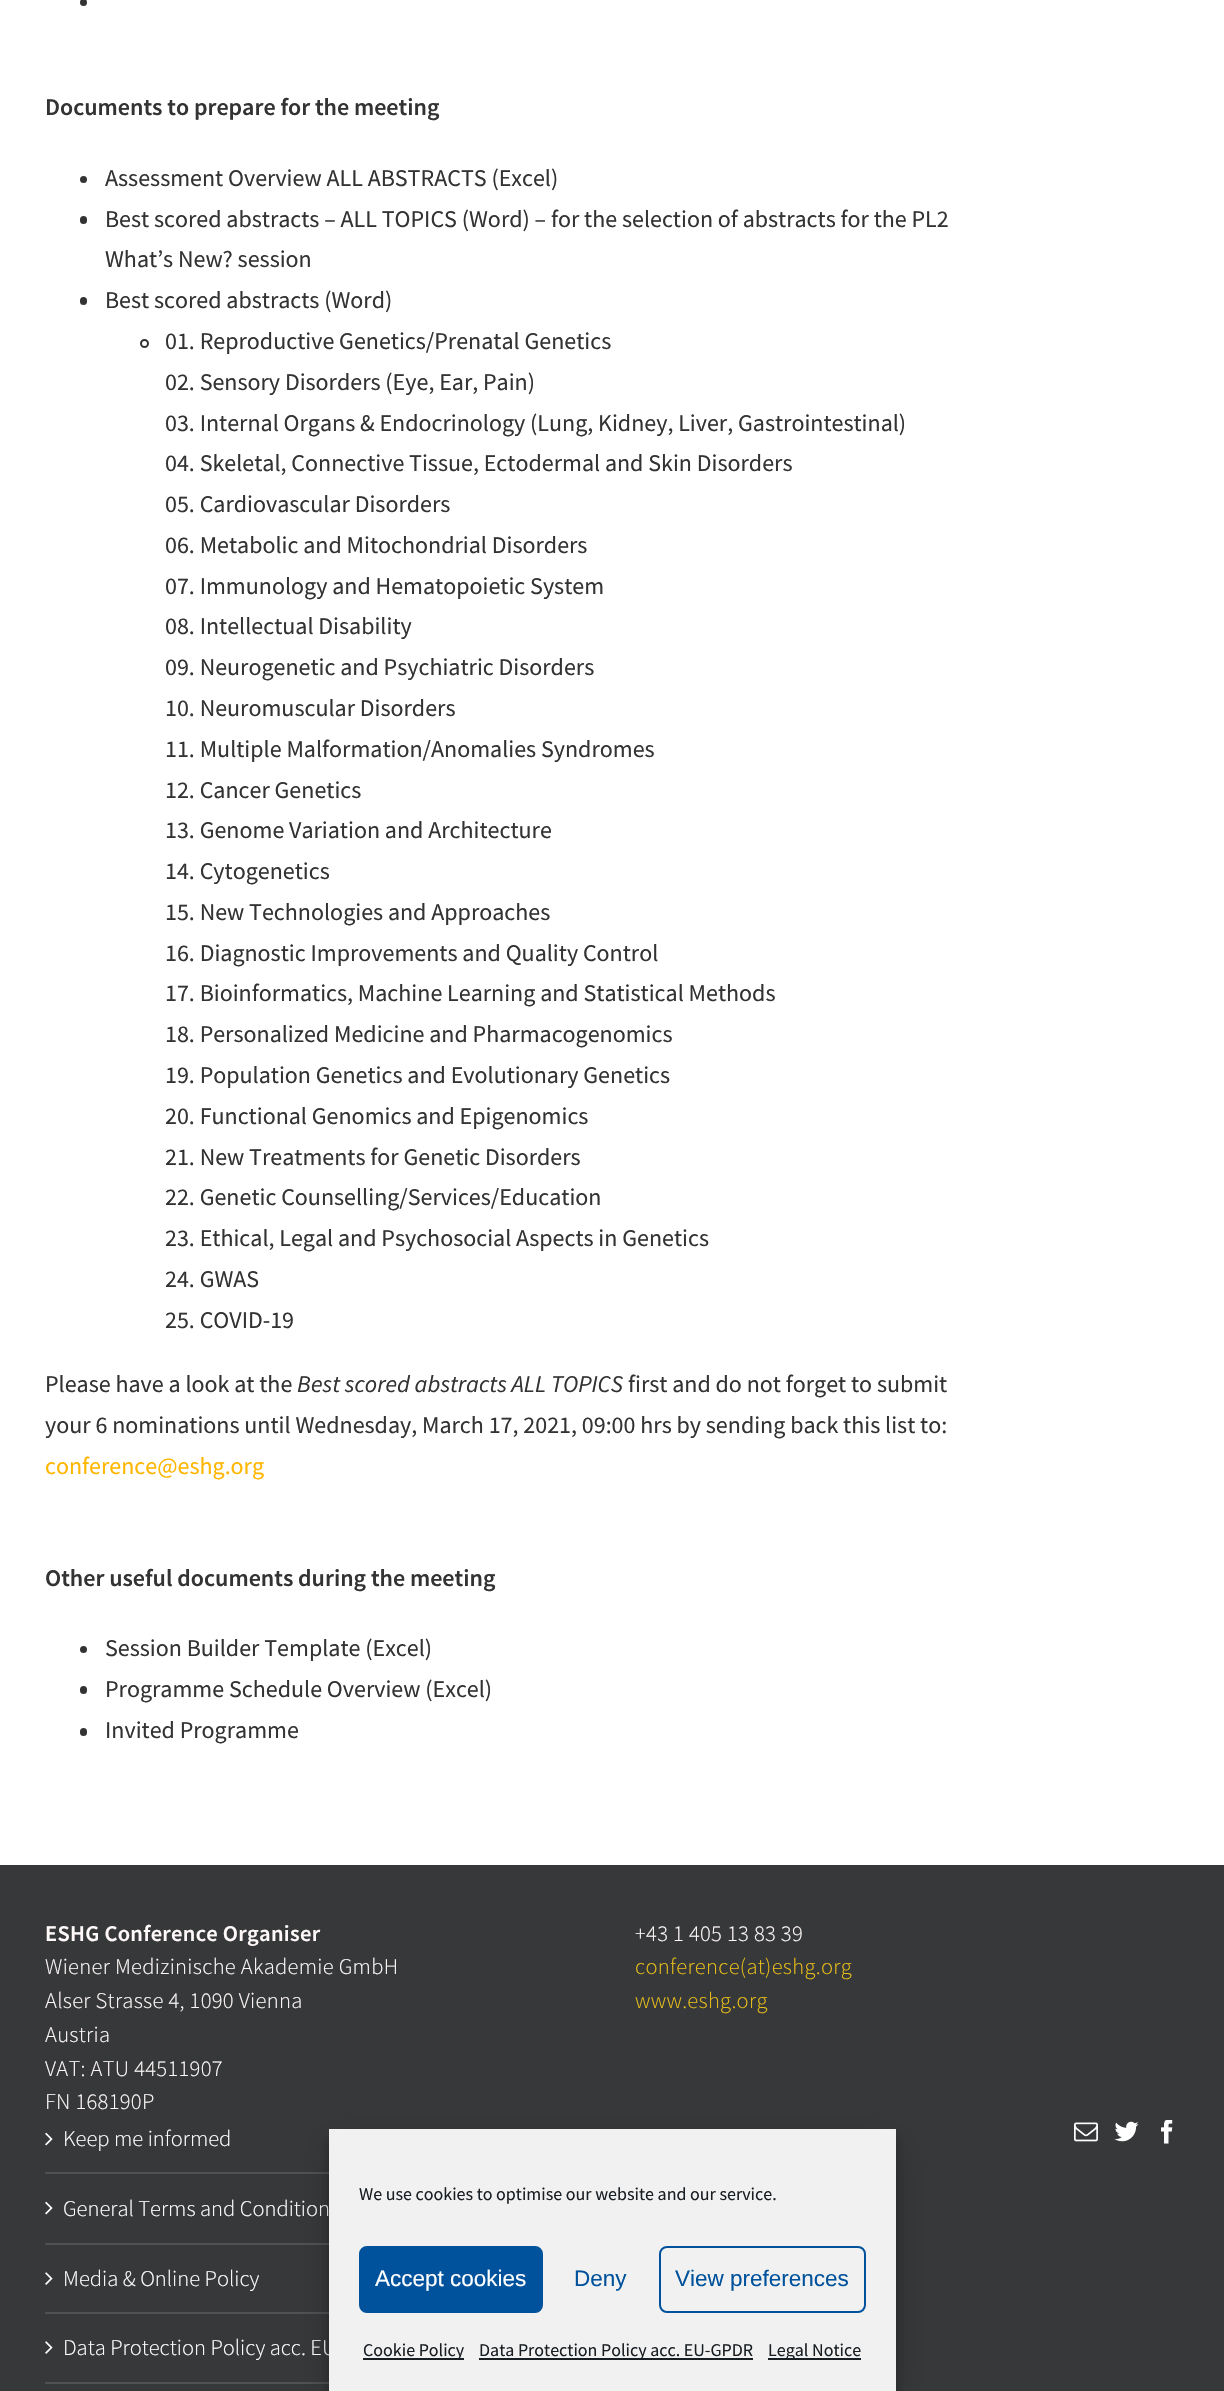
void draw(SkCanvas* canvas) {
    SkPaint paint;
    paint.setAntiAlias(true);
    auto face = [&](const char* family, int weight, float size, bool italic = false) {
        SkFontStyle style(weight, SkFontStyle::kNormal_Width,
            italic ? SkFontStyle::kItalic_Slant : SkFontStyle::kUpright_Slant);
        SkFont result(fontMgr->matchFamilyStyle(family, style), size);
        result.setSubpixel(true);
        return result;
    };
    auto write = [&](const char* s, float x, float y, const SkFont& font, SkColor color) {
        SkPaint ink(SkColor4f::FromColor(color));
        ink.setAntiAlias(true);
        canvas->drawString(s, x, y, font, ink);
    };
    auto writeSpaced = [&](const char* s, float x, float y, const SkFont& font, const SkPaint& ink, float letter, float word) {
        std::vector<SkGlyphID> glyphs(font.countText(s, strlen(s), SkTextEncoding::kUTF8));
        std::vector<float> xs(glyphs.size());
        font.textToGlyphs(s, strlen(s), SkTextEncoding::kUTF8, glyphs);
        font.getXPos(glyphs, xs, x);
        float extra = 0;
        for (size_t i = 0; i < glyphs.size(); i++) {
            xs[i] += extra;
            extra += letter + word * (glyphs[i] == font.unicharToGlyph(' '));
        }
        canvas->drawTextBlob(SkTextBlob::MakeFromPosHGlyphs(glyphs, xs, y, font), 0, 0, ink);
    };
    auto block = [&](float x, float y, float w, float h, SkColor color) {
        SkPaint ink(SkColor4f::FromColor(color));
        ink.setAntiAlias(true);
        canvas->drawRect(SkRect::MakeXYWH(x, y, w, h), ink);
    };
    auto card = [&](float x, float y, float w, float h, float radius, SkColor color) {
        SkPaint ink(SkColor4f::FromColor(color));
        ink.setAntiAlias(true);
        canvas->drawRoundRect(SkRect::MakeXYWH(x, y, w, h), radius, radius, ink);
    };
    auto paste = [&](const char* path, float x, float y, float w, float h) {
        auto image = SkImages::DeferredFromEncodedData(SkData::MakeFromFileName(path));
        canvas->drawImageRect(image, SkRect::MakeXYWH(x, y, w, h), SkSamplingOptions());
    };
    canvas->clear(SK_ColorWHITE);
    paint.setColor(SkColorSetRGB(51, 51, 51));
    canvas->drawCircle(83.5f, 2.5f, 3.5f, paint);
    auto kFont1 = face("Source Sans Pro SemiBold", 600, 24);
    write("Documents to prepare for the meeting", 45, 115, kFont1, SkColorSetRGB(51, 51, 51));
    canvas->drawCircle(83.5f, 179.5f, 3.5f, paint);
    auto kFont2 = face("Source Sans Pro", 400, 24);
    write("Assessment Overview ALL ABSTRACTS (Excel)", 105, 186, kFont2, SkColorSetRGB(51, 51, 51));
    card(80, 216, 7, 8, 3.5f, SkColorSetRGB(51, 51, 51));
    write("Best scored abstracts – ALL TOPICS (Word) – for the selection of abstracts for the PL2", 105, 227, kFont2, SkColorSetRGB(51, 51, 51));
    write("What’s New? session", 105, 267, kFont2, SkColorSetRGB(51, 51, 51));
    card(80, 297, 7, 8, 3.5f, SkColorSetRGB(51, 51, 51));
    write("Best scored abstracts (Word)", 105, 308, kFont2, SkColorSetRGB(51, 51, 51));
    paint.setStyle(SkPaint::kStroke_Style);
    paint.setStrokeWidth(2);
    canvas->drawCircle(144.5f, 343.5f, 3.5f, paint);
    write("01. Reproductive Genetics/Prenatal Genetics", 165, 349, kFont2, SkColorSetRGB(51, 51, 51));
    write("02. Sensory Disorders (Eye, Ear, Pain)", 165, 390, kFont2, SkColorSetRGB(51, 51, 51));
    write("03. Internal Organs & Endocrinology (Lung, Kidney, Liver, Gastrointestinal)", 165, 431, kFont2, SkColorSetRGB(51, 51, 51));
    write("04. Skeletal, Connective Tissue, Ectodermal and Skin Disorders", 165, 471, kFont2, SkColorSetRGB(51, 51, 51));
    write("05. Cardiovascular Disorders", 165, 512, kFont2, SkColorSetRGB(51, 51, 51));
    write("06. Metabolic and Mitochondrial Disorders", 165, 553, kFont2, SkColorSetRGB(51, 51, 51));
    write("07. Immunology and Hematopoietic System", 165, 594, kFont2, SkColorSetRGB(51, 51, 51));
    write("08. Intellectual Disability", 165, 634, kFont2, SkColorSetRGB(51, 51, 51));
    write("09. Neurogenetic and Psychiatric Disorders", 165, 675, kFont2, SkColorSetRGB(51, 51, 51));
    write("10. Neuromuscular Disorders", 165, 716, kFont2, SkColorSetRGB(51, 51, 51));
    write("11. Multiple Malformation/Anomalies Syndromes", 165, 757, kFont2, SkColorSetRGB(51, 51, 51));
    write("12. Cancer Genetics", 165, 798, kFont2, SkColorSetRGB(51, 51, 51));
    write("13. Genome Variation and Architecture", 165, 838, kFont2, SkColorSetRGB(51, 51, 51));
    write("14. Cytogenetics", 165, 879, kFont2, SkColorSetRGB(51, 51, 51));
    write("15. New Technologies and Approaches", 165, 920, kFont2, SkColorSetRGB(51, 51, 51));
    write("16. Diagnostic Improvements and Quality Control", 165, 961, kFont2, SkColorSetRGB(51, 51, 51));
    write("17. Bioinformatics, Machine Learning and Statistical Methods", 165, 1001, kFont2, SkColorSetRGB(51, 51, 51));
    write("18. Personalized Medicine and Pharmacogenomics", 165, 1042, kFont2, SkColorSetRGB(51, 51, 51));
    write("19. Population Genetics and Evolutionary Genetics", 165, 1083, kFont2, SkColorSetRGB(51, 51, 51));
    write("20. Functional Genomics and Epigenomics", 165, 1124, kFont2, SkColorSetRGB(51, 51, 51));
    write("21. New Treatments for Genetic Disorders", 165, 1165, kFont2, SkColorSetRGB(51, 51, 51));
    write("22. Genetic Counselling/Services/Education", 165, 1205, kFont2, SkColorSetRGB(51, 51, 51));
    write("23. Ethical, Legal and Psychosocial Aspects in Genetics", 165, 1246, kFont2, SkColorSetRGB(51, 51, 51));
    write("24. GWAS", 165, 1287, kFont2, SkColorSetRGB(51, 51, 51));
    write("25. COVID-19", 165, 1328, kFont2, SkColorSetRGB(51, 51, 51));
    write("Please have a look at the", 45, 1392, kFont2, SkColorSetRGB(51, 51, 51));
    auto kFont3 = face("Source Sans Pro", 400, 24, true);
    write("Best scored abstracts ALL TOPICS", 297, 1392, kFont3, SkColorSetRGB(51, 51, 51));
    write("first and do not forget to submit", 628, 1392, kFont2, SkColorSetRGB(51, 51, 51));
    write("your 6 nominations until Wednesday, March 17, 2021, 09:00 hrs by sending back this list to:", 45, 1433, kFont2, SkColorSetRGB(51, 51, 51));
    write("conference@eshg.org", 45, 1474, kFont2, SkColorSetRGB(255, 182, 0));
    write("Other useful documents during the meeting", 45, 1586, kFont1, SkColorSetRGB(51, 51, 51));
    paint.setStyle(SkPaint::kFill_Style);
    canvas->drawCircle(83.5f, 1649.5f, 3.5f, paint);
    write("Session Builder Template (Excel)", 105, 1656, kFont2, SkColorSetRGB(51, 51, 51));
    card(80, 1686, 7, 8, 3.5f, SkColorSetRGB(51, 51, 51));
    write("Programme Schedule Overview (Excel)", 105, 1697, kFont2, SkColorSetRGB(51, 51, 51));
    card(80, 1728, 7, 8, 3.5f, SkColorSetRGB(51, 51, 51));
    write("Invited Programme", 105, 1738, kFont2, SkColorSetRGB(51, 51, 51));
    block(0, 1865, 1224, 526, SkColorSetRGB(54, 56, 57));
    auto kFont4 = face("Source Sans Pro SemiBold", 600, 22.5f);
    paint.setColor(SkColorSetRGB(255, 249, 249));
    writeSpaced("ESHG Conference Organiser", 45, 1941, kFont4, paint, 0.3f, 0);
    auto kFont5 = face("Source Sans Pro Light", 300, 22.5f);
    writeSpaced("Wiener Medizinische Akademie GmbH", 45, 1974, kFont5, paint, 0.3f, 0);
    writeSpaced("Alser Strasse 4, 1090 Vienna", 45, 2008, kFont5, paint, 0.3f, 0);
    writeSpaced("Austria", 45, 2042, kFont5, paint, 0.3f, 0);
    writeSpaced("VAT: ATU 44511907", 45, 2076, kFont5, paint, 0.3f, 0);
    writeSpaced("FN 168190P", 45, 2109, kFont5, paint, 0.3f, 0);
    writeSpaced("+43 1 405 13 83 39", 635, 1941, kFont5, paint, 0.3f, 0);
    paint.setColor(SkColorSetRGB(234, 190, 26));
    writeSpaced("conference(at)eshg.org", 635, 1974, kFont5, paint, 0.3f, 0);
    writeSpaced("www.eshg.org", 635, 2008, kFont5, paint, 0.3f, 0);
    block(45, 2172, 284, 2, SkColorSetRGB(80, 81, 82));
    paste("pic1.png", 45, 2132, 8, 14);
    write("Keep me informed", 63, 2146, kFont5, SK_ColorWHITE);
    block(45, 2243, 284, 2, SkColorSetRGB(80, 81, 82));
    paste("pic1.png", 45, 2201, 8, 14);
    write("General Terms and Condition", 63, 2216, kFont5, SK_ColorWHITE);
    block(45, 2312, 284, 2, SkColorSetRGB(80, 81, 82));
    paste("pic2.png", 45, 2272, 8, 13);
    write("Media & Online Policy", 63, 2286, kFont5, SK_ColorWHITE);
    block(45, 2382, 284, 2, SkColorSetRGB(80, 81, 82));
    paste("pic2.png", 45, 2341, 8, 13);
    write("Data Protection Policy acc. EU", 63, 2355, kFont5, SK_ColorWHITE);
    paste("pic3.png", 1074, 2122, 24, 20);
    paste("pic4.png", 1114, 2121, 25, 21);
    paste("pic5.png", 1161, 2120, 12, 24);
    paint.setColor(SkColorSetARGB(59, 0, 0, 0));
    paint.setMaskFilter(SkMaskFilter::MakeBlur(kNormal_SkBlurStyle, 4.5f));
    canvas->drawRect(SkRect::MakeXYWH(329, 2138, 567, 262), paint);
    paint.setMaskFilter(nullptr);
    paint.setColor(SkColorSetARGB(48, 0, 0, 0));
    paint.setMaskFilter(SkMaskFilter::MakeBlur(kNormal_SkBlurStyle, 15));
    canvas->drawRect(SkRect::MakeXYWH(329, 2144, 567, 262), paint);
    paint.setMaskFilter(nullptr);
    block(329, 2129, 567, 262, SkColorSetRGB(241, 241, 241));
    auto kFont6 = face("Source Sans Pro", 400, 18);
    write("We use cookies to optimise our website and our service.", 359, 2200, kFont6, SkColorSetRGB(25, 30, 35));
    paint.setColor(SkColorSetRGB(0, 82, 156));
    canvas->drawRoundRect(SkRect::MakeXYWH(360, 2247, 182, 65), 7, 7, paint);
    paint.setStyle(SkPaint::kStroke_Style);
    canvas->drawRoundRect(SkRect::MakeXYWH(360, 2247, 182, 65), 7, 7, paint);
    auto kFont7 = face("Liberation Sans", 400, 22.5f);
    write("Accept cookies", 375, 2286, kFont7, SK_ColorWHITE);
    write("Deny", 574, 2286, kFont7, SkColorSetRGB(0, 82, 156));
    canvas->drawRoundRect(SkRect::MakeXYWH(660, 2247, 205, 65), 7, 7, paint);
    write("View preferences", 675, 2286, kFont7, SkColorSetRGB(0, 82, 156));
    block(363, 2358, 101, 2, SkColorSetRGB(25, 30, 35));
    write("Cookie Policy", 363, 2356, kFont6, SkColorSetRGB(25, 30, 35));
    block(479, 2358, 274, 2, SkColorSetRGB(25, 30, 35));
    write("Data Protection Policy acc. EU-GPDR", 479, 2356, kFont6, SkColorSetRGB(25, 30, 35));
    block(768, 2358, 93, 2, SkColorSetRGB(25, 30, 35));
    write("Legal Notice", 768, 2356, kFont6, SkColorSetRGB(25, 30, 35));
}
